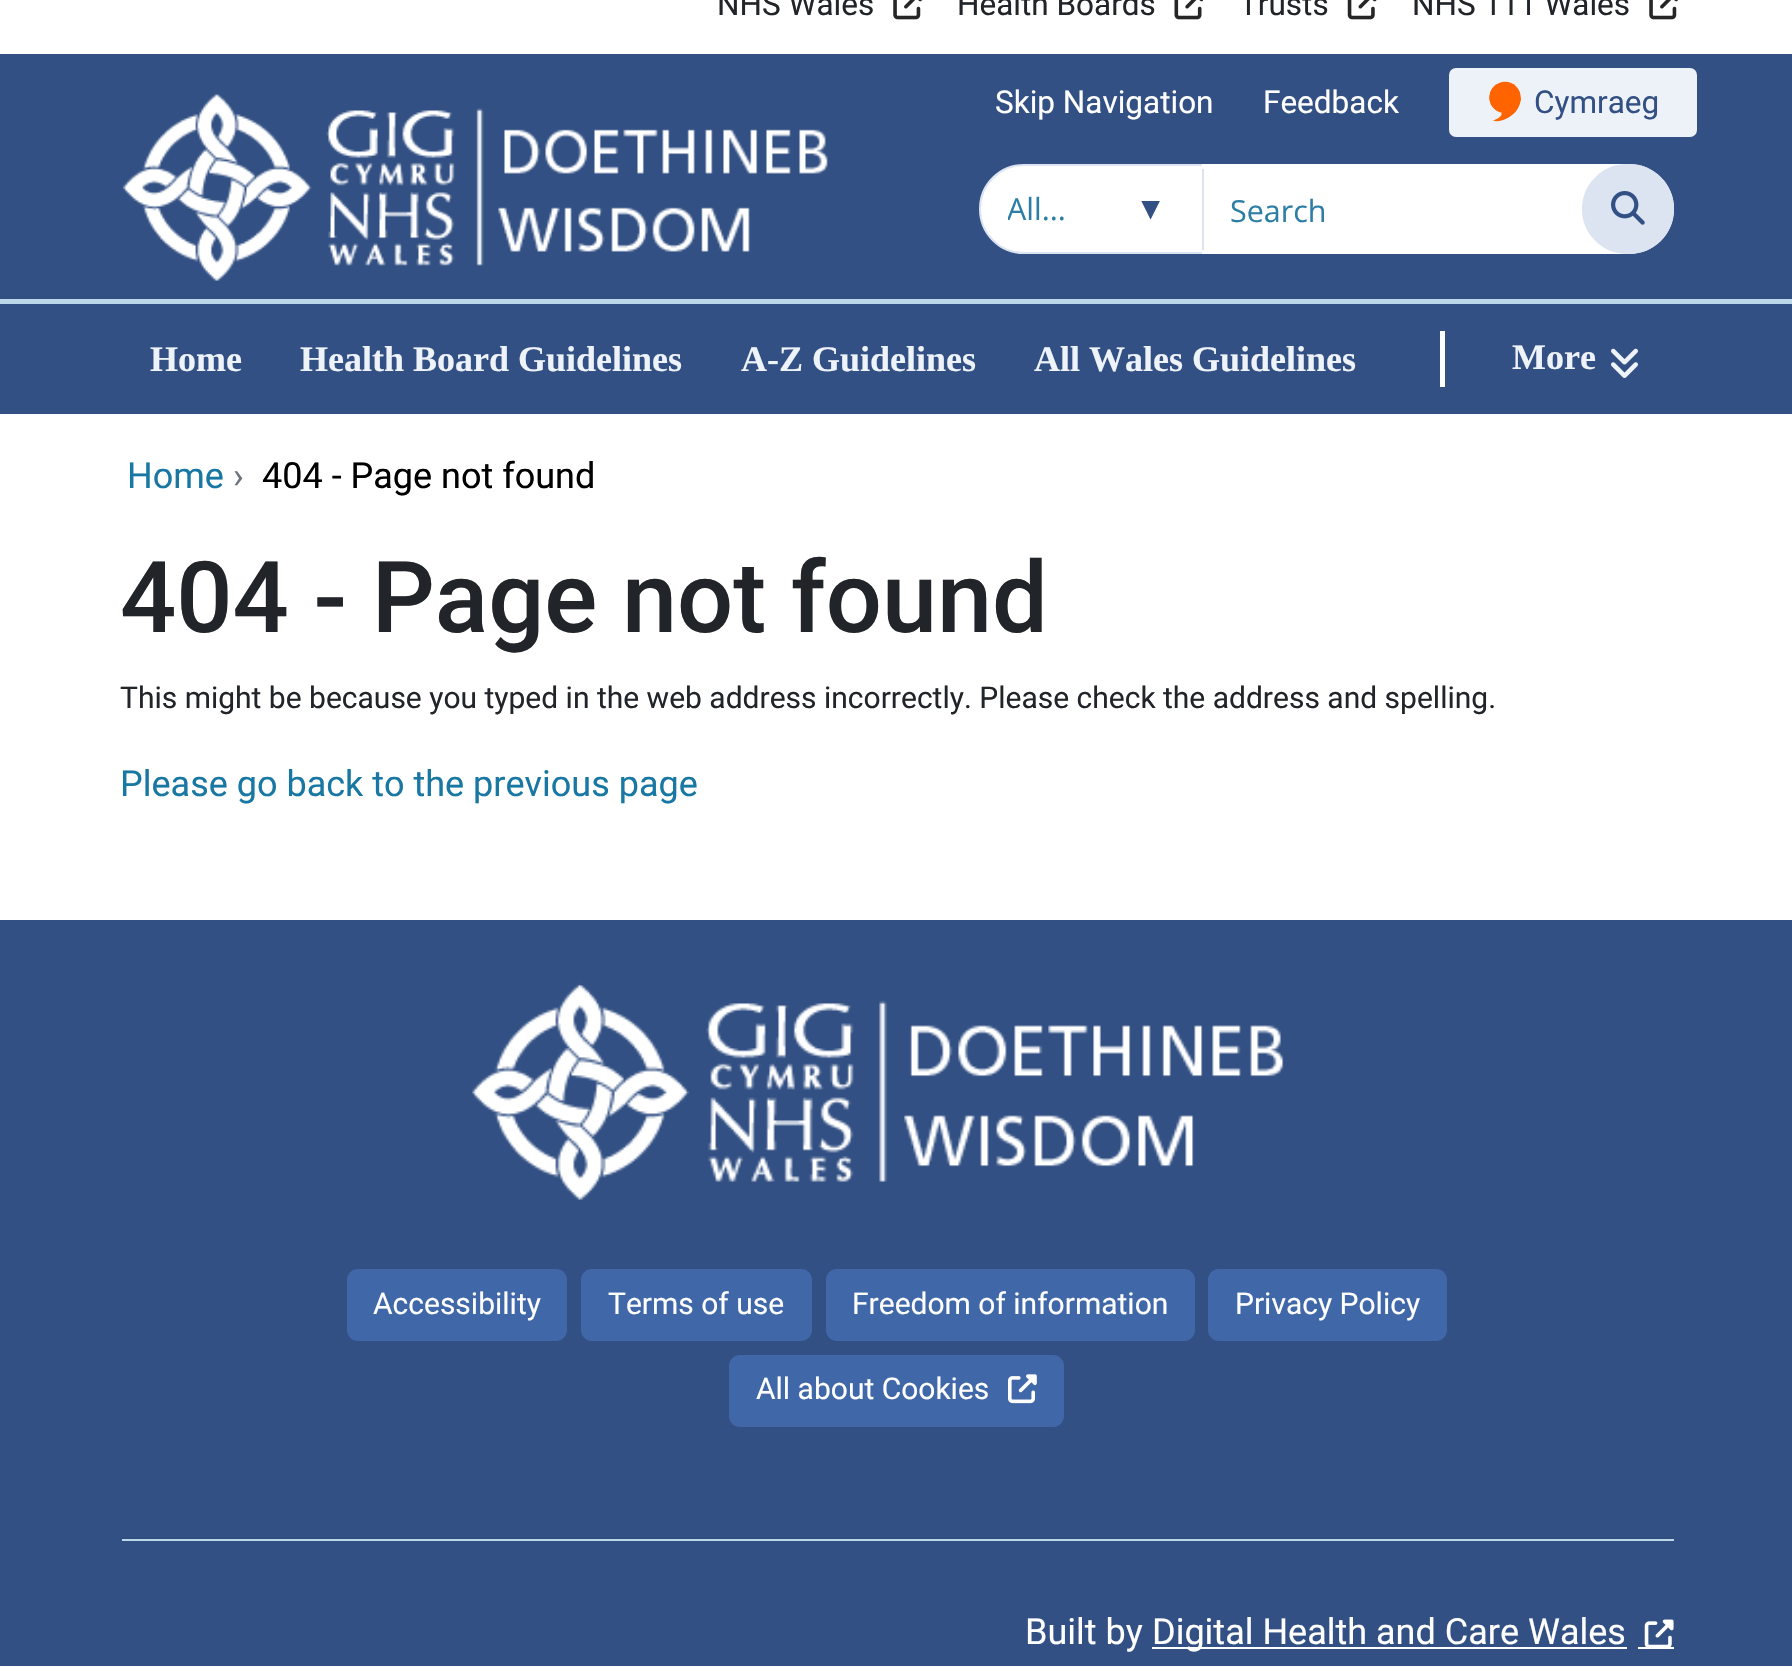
void draw(SkCanvas* canvas) {
    SkPaint paint;
    paint.setAntiAlias(true);
    auto face = [&](const char* family, int weight, float size, bool italic = false) {
        SkFontStyle style(weight, SkFontStyle::kNormal_Width,
            italic ? SkFontStyle::kItalic_Slant : SkFontStyle::kUpright_Slant);
        SkFont result(fontMgr->matchFamilyStyle(family, style), size);
        result.setSubpixel(true);
        return result;
    };
    auto write = [&](const char* s, float x, float y, const SkFont& font, SkColor color) {
        SkPaint ink(SkColor4f::FromColor(color));
        ink.setAntiAlias(true);
        canvas->drawString(s, x, y, font, ink);
    };
    auto block = [&](float x, float y, float w, float h, SkColor color) {
        SkPaint ink(SkColor4f::FromColor(color));
        ink.setAntiAlias(true);
        canvas->drawRect(SkRect::MakeXYWH(x, y, w, h), ink);
    };
    auto card = [&](float x, float y, float w, float h, float radius, SkColor color) {
        SkPaint ink(SkColor4f::FromColor(color));
        ink.setAntiAlias(true);
        canvas->drawRoundRect(SkRect::MakeXYWH(x, y, w, h), radius, radius, ink);
    };
    auto paste = [&](const char* path, float x, float y, float w, float h) {
        auto image = SkImages::DeferredFromEncodedData(SkData::MakeFromFileName(path));
        canvas->drawImageRect(image, SkRect::MakeXYWH(x, y, w, h), SkSamplingOptions());
    };
    canvas->clear(SK_ColorWHITE);
    block(0, 54, 1792, 245, SkColorSetRGB(50, 80, 131));
    block(0, 299, 1792, 5, SkColorSetRGB(189, 215, 234));
    auto kFont1 = face("Roboto", 400, 31.5f);
    write("NHS Wales", 717, 15, kFont1, SkColorSetRGB(33, 37, 41));
    paste("pic1.png", 893, 0, 29, 20);
    write("Health Boards", 957, 15, kFont1, SkColorSetRGB(33, 37, 41));
    paste("pic2.png", 1174, 0, 30, 20);
    write("Trusts", 1239, 15, kFont1, SkColorSetRGB(33, 37, 41));
    paste("pic3.png", 1347, 0, 30, 20);
    write("NHS 111 Wales", 1412, 15, kFont1, SkColorSetRGB(33, 37, 41));
    paste("pic1.png", 1649, 0, 29, 20);
    write("Skip Navigation", 995, 113, kFont1, SK_ColorWHITE);
    write("Feedback", 1263, 113, kFont1, SK_ColorWHITE);
    card(1449, 68, 248, 69, 7, SkColorSetRGB(237, 241, 248));
    paste("pic4.png", 1489, 81, 32, 41);
    write("Cymraeg", 1534, 113, kFont1, SkColorSetRGB(50, 80, 131));
    paste("pic5.png", 122, 93, 706, 188);
    paint.setColor(SK_ColorWHITE);
    canvas->drawPath(SkPathBuilder().moveTo(1024, 165).lineTo(1203, 165).lineTo(1203, 253).lineTo(1024, 253).cubicTo(999.5f, 253, 980, 233.5f, 980, 209).cubicTo(980, 184.5f, 999.5f, 165, 1024, 165).close().detach(), paint);
    paint.setStyle(SkPaint::kStroke_Style);
    paint.setStrokeWidth(2);
    paint.setColor(SkColorSetRGB(220, 228, 242));
    canvas->drawPath(SkPathBuilder().moveTo(1024, 165).lineTo(1203, 165).lineTo(1203, 253).lineTo(1024, 253).cubicTo(999.5f, 253, 980, 233.5f, 980, 209).cubicTo(980, 184.5f, 999.5f, 165, 1024, 165).close().detach(), paint);
    canvas->save();
    canvas->clipRect(SkRect::MakeXYWH(1008, 187, 122, 45));
    auto kFont2 = face("Open Sans", 400, 30.5f);
    write("All...", 1007, 220, kFont2, SkColorSetRGB(45, 126, 165));
    canvas->restore();
    auto kFont3 = face("Liberation Sans", 400, 31.5f);
    write("▼", 1135, 219, kFont3, SkColorSetRGB(50, 80, 131));
    paint.setStyle(SkPaint::kFill_Style);
    paint.setColor(SK_ColorWHITE);
    canvas->drawPath(SkPathBuilder().moveTo(1202, 164).lineTo(1629, 164).cubicTo(1654, 164, 1674, 184, 1674, 209).cubicTo(1674, 234, 1654, 254, 1629, 254).lineTo(1202, 254).close().detach(), paint);
    block(1202, 169, 2, 81, SkColorSetRGB(220, 228, 242));
    write("Search", 1230, 222, kFont2, SkColorSetRGB(45, 126, 165));
    paint.setColor(SkColorSetRGB(220, 228, 242));
    canvas->drawRoundRect(SkRect::MakeXYWH(1583, 165, 90, 88), 44, 44, paint);
    paint.setStyle(SkPaint::kStroke_Style);
    canvas->drawRoundRect(SkRect::MakeXYWH(1583, 165, 90, 88), 44, 44, paint);
    paste("pic6.png", 1611, 191, 34, 34);
    block(0, 304, 1792, 110, SkColorSetRGB(50, 80, 131));
    auto kFont4 = face("Liberation Serif", 700, 36);
    write("Home", 150, 371, kFont4, SkColorSetRGB(238, 242, 249));
    write("Health Board Guidelines", 300, 371, kFont4, SkColorSetRGB(238, 242, 249));
    write("A-Z Guidelines", 741, 371, kFont4, SkColorSetRGB(238, 242, 249));
    write("All Wales Guidelines", 1034, 371, kFont4, SkColorSetRGB(238, 242, 249));
    block(1440, 331, 5, 56, SK_ColorWHITE);
    write("More", 1512, 369, kFont4, SkColorSetRGB(238, 242, 249));
    paste("pic7.png", 1611, 348, 27, 30);
    auto kFont5 = face("Roboto", 400, 36);
    write("Home", 127, 488, kFont5, SkColorSetRGB(25, 120, 163));
    write("›", 233, 488, kFont5, SkColorSetRGB(108, 117, 125));
    write("404 - Page not found", 262, 488, kFont5, SK_ColorBLACK);
    auto kFont6 = face("Roboto", 500, 99);
    write("404 - Page not found", 120, 632, kFont6, SkColorSetRGB(33, 37, 41));
    auto kFont7 = face("Roboto", 400, 30);
    write("This might be because you typed in the web address incorrectly. Please check the address and spelling.", 120, 708, kFont7, SkColorSetRGB(33, 37, 41));
    write("Please go back to the previous page", 120, 796, kFont5, SkColorSetRGB(25, 120, 163));
    block(0, 920, 1792, 746, SkColorSetRGB(50, 80, 131));
    paste("pic8.png", 472, 983, 812, 217);
    card(347, 1269, 220, 72, 11, SkColorSetRGB(64, 103, 168));
    write("Accessibility", 373, 1314, kFont7, SK_ColorWHITE);
    card(581, 1269, 231, 72, 11, SkColorSetRGB(64, 103, 168));
    write("Terms of use", 608, 1314, kFont7, SK_ColorWHITE);
    card(826, 1269, 369, 72, 11, SkColorSetRGB(64, 103, 168));
    write("Freedom of information", 852, 1314, kFont7, SK_ColorWHITE);
    card(1208, 1269, 239, 72, 11, SkColorSetRGB(64, 103, 168));
    write("Privacy Policy", 1235, 1314, kFont7, SK_ColorWHITE);
    card(729, 1355, 335, 72, 11, SkColorSetRGB(64, 103, 168));
    write("All about Cookies", 756, 1399, kFont7, SK_ColorWHITE);
    paste("pic9.png", 1008, 1374, 29, 30);
    block(122, 1537, 1552, 2, SkColorSetRGB(50, 78, 124));
    block(122, 1539, 1552, 2, SkColorSetRGB(189, 215, 234));
    write("Built by", 1025, 1644, kFont5, SK_ColorWHITE);
    block(1152, 1647, 475, 2, SK_ColorWHITE);
    write("Digital Health and Care Wales", 1152, 1644, kFont5, SK_ColorWHITE);
    block(1638, 1647, 36, 2, SK_ColorWHITE);
    paste("pic10.png", 1644, 1619, 30, 28);
}
